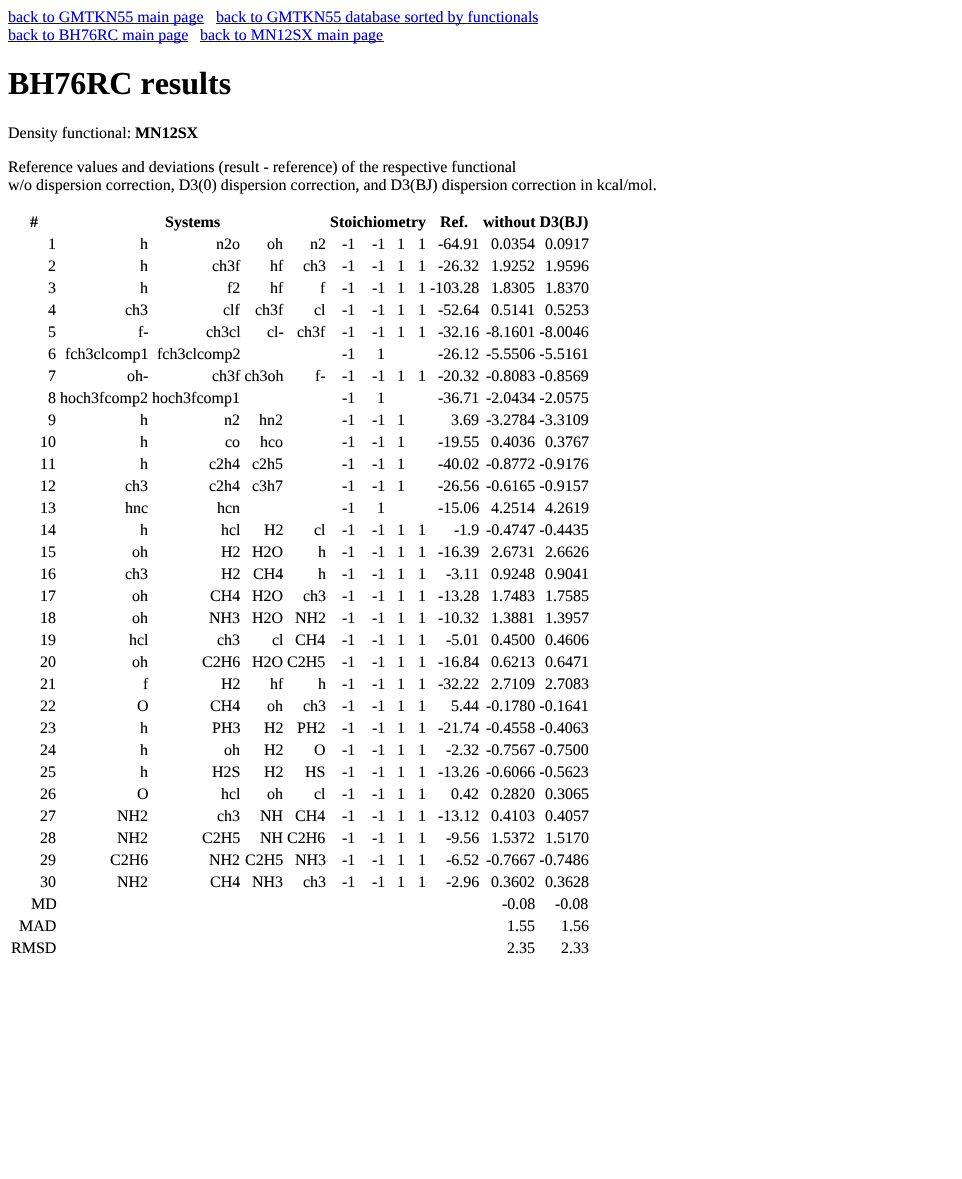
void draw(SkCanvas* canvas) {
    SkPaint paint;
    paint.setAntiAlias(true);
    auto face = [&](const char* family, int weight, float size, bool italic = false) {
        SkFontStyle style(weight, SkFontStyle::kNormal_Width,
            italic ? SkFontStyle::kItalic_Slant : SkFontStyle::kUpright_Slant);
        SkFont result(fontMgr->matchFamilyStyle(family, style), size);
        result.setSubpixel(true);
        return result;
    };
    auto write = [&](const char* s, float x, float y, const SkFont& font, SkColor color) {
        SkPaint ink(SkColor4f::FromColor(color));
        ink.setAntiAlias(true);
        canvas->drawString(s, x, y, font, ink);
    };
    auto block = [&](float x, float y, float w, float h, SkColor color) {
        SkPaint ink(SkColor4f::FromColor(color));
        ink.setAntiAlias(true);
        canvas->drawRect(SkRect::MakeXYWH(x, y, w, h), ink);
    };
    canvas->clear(SK_ColorWHITE);
    block(8, 23, 196, 1, SkColorSetRGB(0, 0, 238));
    auto kFont1 = face("Liberation Serif", 400, 16);
    write("back to GMTKN55 main page", 8, 22, kFont1, SkColorSetRGB(0, 0, 238));
    block(216, 23, 322, 1, SkColorSetRGB(0, 0, 238));
    write("back to GMTKN55 database sorted by functionals", 216, 22, kFont1, SkColorSetRGB(0, 0, 238));
    block(8, 41, 180, 1, SkColorSetRGB(0, 0, 238));
    write("back to BH76RC main page", 8, 40, kFont1, SkColorSetRGB(0, 0, 238));
    block(200, 41, 184, 1, SkColorSetRGB(0, 0, 238));
    write("back to MN12SX main page", 200, 40, kFont1, SkColorSetRGB(0, 0, 238));
    auto kFont2 = face("Liberation Serif", 700, 32);
    write("BH76RC results", 8, 94, kFont2, SK_ColorBLACK);
    write("Density functional:", 8, 138, kFont1, SK_ColorBLACK);
    auto kFont3 = face("Liberation Serif", 700, 16);
    write("MN12SX", 135, 138, kFont3, SK_ColorBLACK);
    write("Reference values and deviations (result - reference) of the respective functional", 8, 172, kFont1, SK_ColorBLACK);
    write("w/o dispersion correction, D3(0) dispersion correction, and D3(BJ) dispersion correction in kcal/mol.", 8, 190, kFont1, SK_ColorBLACK);
    write("#", 30, 227, kFont3, SK_ColorBLACK);
    write("Systems", 165, 227, kFont3, SK_ColorBLACK);
    write("Stoichiometry", 330, 227, kFont3, SK_ColorBLACK);
    write("Ref.", 440, 227, kFont3, SK_ColorBLACK);
    write("without D3(BJ)", 483, 227, kFont3, SK_ColorBLACK);
    write("1", 48, 249, kFont1, SK_ColorBLACK);
    write("h", 140, 249, kFont1, SK_ColorBLACK);
    write("n2o", 216, 249, kFont1, SK_ColorBLACK);
    write("oh", 267, 249, kFont1, SK_ColorBLACK);
    write("n2", 310, 249, kFont1, SK_ColorBLACK);
    write("-1", 342, 249, kFont1, SK_ColorBLACK);
    write("-1", 372, 249, kFont1, SK_ColorBLACK);
    write("1", 397, 249, kFont1, SK_ColorBLACK);
    write("1", 418, 249, kFont1, SK_ColorBLACK);
    write("-64.91", 438, 249, kFont1, SK_ColorBLACK);
    write("0.0354", 491, 249, kFont1, SK_ColorBLACK);
    write("0.0917", 545, 249, kFont1, SK_ColorBLACK);
    write("2", 48, 271, kFont1, SK_ColorBLACK);
    write("h", 140, 271, kFont1, SK_ColorBLACK);
    write("ch3f", 212, 271, kFont1, SK_ColorBLACK);
    write("hf", 270, 271, kFont1, SK_ColorBLACK);
    write("ch3", 303, 271, kFont1, SK_ColorBLACK);
    write("-1", 342, 271, kFont1, SK_ColorBLACK);
    write("-1", 372, 271, kFont1, SK_ColorBLACK);
    write("1", 397, 271, kFont1, SK_ColorBLACK);
    write("1", 418, 271, kFont1, SK_ColorBLACK);
    write("-26.32", 438, 271, kFont1, SK_ColorBLACK);
    write("1.9252", 491, 271, kFont1, SK_ColorBLACK);
    write("1.9596", 545, 271, kFont1, SK_ColorBLACK);
    write("3", 48, 293, kFont1, SK_ColorBLACK);
    write("h", 140, 293, kFont1, SK_ColorBLACK);
    write("f2", 227, 293, kFont1, SK_ColorBLACK);
    write("hf", 270, 293, kFont1, SK_ColorBLACK);
    write("f", 320, 293, kFont1, SK_ColorBLACK);
    write("-1", 342, 293, kFont1, SK_ColorBLACK);
    write("-1", 372, 293, kFont1, SK_ColorBLACK);
    write("1", 397, 293, kFont1, SK_ColorBLACK);
    write("1 -103.28", 418, 293, kFont1, SK_ColorBLACK);
    write("1.8305", 491, 293, kFont1, SK_ColorBLACK);
    write("1.8370", 545, 293, kFont1, SK_ColorBLACK);
    write("4", 48, 315, kFont1, SK_ColorBLACK);
    write("ch3", 125, 315, kFont1, SK_ColorBLACK);
    write("clf", 223, 315, kFont1, SK_ColorBLACK);
    write("ch3f", 255, 315, kFont1, SK_ColorBLACK);
    write("cl", 314, 315, kFont1, SK_ColorBLACK);
    write("-1", 342, 315, kFont1, SK_ColorBLACK);
    write("-1", 372, 315, kFont1, SK_ColorBLACK);
    write("1", 397, 315, kFont1, SK_ColorBLACK);
    write("1", 418, 315, kFont1, SK_ColorBLACK);
    write("-52.64", 438, 315, kFont1, SK_ColorBLACK);
    write("0.5141", 491, 315, kFont1, SK_ColorBLACK);
    write("0.5253", 545, 315, kFont1, SK_ColorBLACK);
    write("5", 48, 337, kFont1, SK_ColorBLACK);
    write("f-", 138, 337, kFont1, SK_ColorBLACK);
    write("ch3cl", 206, 337, kFont1, SK_ColorBLACK);
    write("cl-", 267, 337, kFont1, SK_ColorBLACK);
    write("ch3f", 297, 337, kFont1, SK_ColorBLACK);
    write("-1", 342, 337, kFont1, SK_ColorBLACK);
    write("-1", 372, 337, kFont1, SK_ColorBLACK);
    write("1", 397, 337, kFont1, SK_ColorBLACK);
    write("1", 418, 337, kFont1, SK_ColorBLACK);
    write("-32.16", 438, 337, kFont1, SK_ColorBLACK);
    write("-8.1601 -8.0046", 486, 337, kFont1, SK_ColorBLACK);
    write("6", 48, 359, kFont1, SK_ColorBLACK);
    write("fch3clcomp1", 65, 359, kFont1, SK_ColorBLACK);
    write("fch3clcomp2", 157, 359, kFont1, SK_ColorBLACK);
    write("-1", 342, 359, kFont1, SK_ColorBLACK);
    write("1", 377, 359, kFont1, SK_ColorBLACK);
    write("-26.12", 438, 359, kFont1, SK_ColorBLACK);
    write("-5.5506 -5.5161", 486, 359, kFont1, SK_ColorBLACK);
    write("7", 48, 381, kFont1, SK_ColorBLACK);
    write("oh-", 127, 381, kFont1, SK_ColorBLACK);
    write("ch3f ch3oh", 212, 381, kFont1, SK_ColorBLACK);
    write("f-", 315, 381, kFont1, SK_ColorBLACK);
    write("-1", 342, 381, kFont1, SK_ColorBLACK);
    write("-1", 372, 381, kFont1, SK_ColorBLACK);
    write("1", 397, 381, kFont1, SK_ColorBLACK);
    write("1", 418, 381, kFont1, SK_ColorBLACK);
    write("-20.32", 438, 381, kFont1, SK_ColorBLACK);
    write("-0.8083 -0.8569", 486, 381, kFont1, SK_ColorBLACK);
    write("8 hoch3fcomp2 hoch3fcomp1", 48, 403, kFont1, SK_ColorBLACK);
    write("-1", 342, 403, kFont1, SK_ColorBLACK);
    write("1", 377, 403, kFont1, SK_ColorBLACK);
    write("-36.71", 438, 403, kFont1, SK_ColorBLACK);
    write("-2.0434 -2.0575", 486, 403, kFont1, SK_ColorBLACK);
    write("9", 48, 425, kFont1, SK_ColorBLACK);
    write("h", 140, 425, kFont1, SK_ColorBLACK);
    write("n2", 224, 425, kFont1, SK_ColorBLACK);
    write("hn2", 259, 425, kFont1, SK_ColorBLACK);
    write("-1", 342, 425, kFont1, SK_ColorBLACK);
    write("-1", 372, 425, kFont1, SK_ColorBLACK);
    write("1", 397, 425, kFont1, SK_ColorBLACK);
    write("3.69", 451, 425, kFont1, SK_ColorBLACK);
    write("-3.2784 -3.3109", 486, 425, kFont1, SK_ColorBLACK);
    write("10", 40, 447, kFont1, SK_ColorBLACK);
    write("h", 140, 447, kFont1, SK_ColorBLACK);
    write("co", 225, 447, kFont1, SK_ColorBLACK);
    write("hco", 260, 447, kFont1, SK_ColorBLACK);
    write("-1", 342, 447, kFont1, SK_ColorBLACK);
    write("-1", 372, 447, kFont1, SK_ColorBLACK);
    write("1", 397, 447, kFont1, SK_ColorBLACK);
    write("-19.55", 438, 447, kFont1, SK_ColorBLACK);
    write("0.4036", 491, 447, kFont1, SK_ColorBLACK);
    write("0.3767", 545, 447, kFont1, SK_ColorBLACK);
    write("11", 40, 469, kFont1, SK_ColorBLACK);
    write("h", 140, 469, kFont1, SK_ColorBLACK);
    write("c2h4", 209, 469, kFont1, SK_ColorBLACK);
    write("c2h5", 252, 469, kFont1, SK_ColorBLACK);
    write("-1", 342, 469, kFont1, SK_ColorBLACK);
    write("-1", 372, 469, kFont1, SK_ColorBLACK);
    write("1", 397, 469, kFont1, SK_ColorBLACK);
    write("-40.02", 438, 469, kFont1, SK_ColorBLACK);
    write("-0.8772 -0.9176", 486, 469, kFont1, SK_ColorBLACK);
    write("12", 40, 491, kFont1, SK_ColorBLACK);
    write("ch3", 125, 491, kFont1, SK_ColorBLACK);
    write("c2h4", 209, 491, kFont1, SK_ColorBLACK);
    write("c3h7", 252, 491, kFont1, SK_ColorBLACK);
    write("-1", 342, 491, kFont1, SK_ColorBLACK);
    write("-1", 372, 491, kFont1, SK_ColorBLACK);
    write("1", 397, 491, kFont1, SK_ColorBLACK);
    write("-26.56", 438, 491, kFont1, SK_ColorBLACK);
    write("-0.6165 -0.9157", 486, 491, kFont1, SK_ColorBLACK);
    write("13", 40, 513, kFont1, SK_ColorBLACK);
    write("hnc", 125, 513, kFont1, SK_ColorBLACK);
    write("hcn", 217, 513, kFont1, SK_ColorBLACK);
    write("-1", 342, 513, kFont1, SK_ColorBLACK);
    write("1", 377, 513, kFont1, SK_ColorBLACK);
    write("-15.06", 438, 513, kFont1, SK_ColorBLACK);
    write("4.2514", 491, 513, kFont1, SK_ColorBLACK);
    write("4.2619", 545, 513, kFont1, SK_ColorBLACK);
    write("14", 40, 535, kFont1, SK_ColorBLACK);
    write("h", 140, 535, kFont1, SK_ColorBLACK);
    write("hcl", 221, 535, kFont1, SK_ColorBLACK);
    write("H2", 264, 535, kFont1, SK_ColorBLACK);
    write("cl", 314, 535, kFont1, SK_ColorBLACK);
    write("-1", 342, 535, kFont1, SK_ColorBLACK);
    write("-1", 372, 535, kFont1, SK_ColorBLACK);
    write("1", 397, 535, kFont1, SK_ColorBLACK);
    write("1", 418, 535, kFont1, SK_ColorBLACK);
    write("-1.9", 454, 535, kFont1, SK_ColorBLACK);
    write("-0.4747 -0.4435", 486, 535, kFont1, SK_ColorBLACK);
    write("15", 40, 557, kFont1, SK_ColorBLACK);
    write("oh", 132, 557, kFont1, SK_ColorBLACK);
    write("H2", 221, 557, kFont1, SK_ColorBLACK);
    write("H2O", 252, 557, kFont1, SK_ColorBLACK);
    write("h", 318, 557, kFont1, SK_ColorBLACK);
    write("-1", 342, 557, kFont1, SK_ColorBLACK);
    write("-1", 372, 557, kFont1, SK_ColorBLACK);
    write("1", 397, 557, kFont1, SK_ColorBLACK);
    write("1", 418, 557, kFont1, SK_ColorBLACK);
    write("-16.39", 438, 557, kFont1, SK_ColorBLACK);
    write("2.6731", 491, 557, kFont1, SK_ColorBLACK);
    write("2.6626", 545, 557, kFont1, SK_ColorBLACK);
    write("16", 40, 579, kFont1, SK_ColorBLACK);
    write("ch3", 125, 579, kFont1, SK_ColorBLACK);
    write("H2", 221, 579, kFont1, SK_ColorBLACK);
    write("CH4", 253, 579, kFont1, SK_ColorBLACK);
    write("h", 318, 579, kFont1, SK_ColorBLACK);
    write("-1", 342, 579, kFont1, SK_ColorBLACK);
    write("-1", 372, 579, kFont1, SK_ColorBLACK);
    write("1", 397, 579, kFont1, SK_ColorBLACK);
    write("1", 418, 579, kFont1, SK_ColorBLACK);
    write("-3.11", 446, 579, kFont1, SK_ColorBLACK);
    write("0.9248", 491, 579, kFont1, SK_ColorBLACK);
    write("0.9041", 545, 579, kFont1, SK_ColorBLACK);
    write("17", 40, 601, kFont1, SK_ColorBLACK);
    write("oh", 132, 601, kFont1, SK_ColorBLACK);
    write("CH4", 210, 601, kFont1, SK_ColorBLACK);
    write("H2O", 252, 601, kFont1, SK_ColorBLACK);
    write("ch3", 303, 601, kFont1, SK_ColorBLACK);
    write("-1", 342, 601, kFont1, SK_ColorBLACK);
    write("-1", 372, 601, kFont1, SK_ColorBLACK);
    write("1", 397, 601, kFont1, SK_ColorBLACK);
    write("1", 418, 601, kFont1, SK_ColorBLACK);
    write("-13.28", 438, 601, kFont1, SK_ColorBLACK);
    write("1.7483", 491, 601, kFont1, SK_ColorBLACK);
    write("1.7585", 545, 601, kFont1, SK_ColorBLACK);
    write("18", 40, 623, kFont1, SK_ColorBLACK);
    write("oh", 132, 623, kFont1, SK_ColorBLACK);
    write("NH3", 209, 623, kFont1, SK_ColorBLACK);
    write("H2O", 252, 623, kFont1, SK_ColorBLACK);
    write("NH2", 295, 623, kFont1, SK_ColorBLACK);
    write("-1", 342, 623, kFont1, SK_ColorBLACK);
    write("-1", 372, 623, kFont1, SK_ColorBLACK);
    write("1", 397, 623, kFont1, SK_ColorBLACK);
    write("1", 418, 623, kFont1, SK_ColorBLACK);
    write("-10.32", 438, 623, kFont1, SK_ColorBLACK);
    write("1.3881", 491, 623, kFont1, SK_ColorBLACK);
    write("1.3957", 545, 623, kFont1, SK_ColorBLACK);
    write("19", 40, 645, kFont1, SK_ColorBLACK);
    write("hcl", 129, 645, kFont1, SK_ColorBLACK);
    write("ch3", 217, 645, kFont1, SK_ColorBLACK);
    write("cl", 272, 645, kFont1, SK_ColorBLACK);
    write("CH4", 295, 645, kFont1, SK_ColorBLACK);
    write("-1", 342, 645, kFont1, SK_ColorBLACK);
    write("-1", 372, 645, kFont1, SK_ColorBLACK);
    write("1", 397, 645, kFont1, SK_ColorBLACK);
    write("1", 418, 645, kFont1, SK_ColorBLACK);
    write("-5.01", 446, 645, kFont1, SK_ColorBLACK);
    write("0.4500", 491, 645, kFont1, SK_ColorBLACK);
    write("0.4606", 545, 645, kFont1, SK_ColorBLACK);
    write("20", 40, 667, kFont1, SK_ColorBLACK);
    write("oh", 132, 667, kFont1, SK_ColorBLACK);
    write("C2H6", 202, 667, kFont1, SK_ColorBLACK);
    write("H2O C2H5", 252, 667, kFont1, SK_ColorBLACK);
    write("-1", 342, 667, kFont1, SK_ColorBLACK);
    write("-1", 372, 667, kFont1, SK_ColorBLACK);
    write("1", 397, 667, kFont1, SK_ColorBLACK);
    write("1", 418, 667, kFont1, SK_ColorBLACK);
    write("-16.84", 438, 667, kFont1, SK_ColorBLACK);
    write("0.6213", 491, 667, kFont1, SK_ColorBLACK);
    write("0.6471", 545, 667, kFont1, SK_ColorBLACK);
    write("21", 40, 689, kFont1, SK_ColorBLACK);
    write("f", 143, 689, kFont1, SK_ColorBLACK);
    write("H2", 221, 689, kFont1, SK_ColorBLACK);
    write("hf", 270, 689, kFont1, SK_ColorBLACK);
    write("h", 318, 689, kFont1, SK_ColorBLACK);
    write("-1", 342, 689, kFont1, SK_ColorBLACK);
    write("-1", 372, 689, kFont1, SK_ColorBLACK);
    write("1", 397, 689, kFont1, SK_ColorBLACK);
    write("1", 418, 689, kFont1, SK_ColorBLACK);
    write("-32.22", 438, 689, kFont1, SK_ColorBLACK);
    write("2.7109", 491, 689, kFont1, SK_ColorBLACK);
    write("2.7083", 545, 689, kFont1, SK_ColorBLACK);
    write("22", 40, 711, kFont1, SK_ColorBLACK);
    write("O", 137, 711, kFont1, SK_ColorBLACK);
    write("CH4", 210, 711, kFont1, SK_ColorBLACK);
    write("oh", 267, 711, kFont1, SK_ColorBLACK);
    write("ch3", 303, 711, kFont1, SK_ColorBLACK);
    write("-1", 342, 711, kFont1, SK_ColorBLACK);
    write("-1", 372, 711, kFont1, SK_ColorBLACK);
    write("1", 397, 711, kFont1, SK_ColorBLACK);
    write("1", 418, 711, kFont1, SK_ColorBLACK);
    write("5.44", 451, 711, kFont1, SK_ColorBLACK);
    write("-0.1780 -0.1641", 486, 711, kFont1, SK_ColorBLACK);
    write("23", 40, 733, kFont1, SK_ColorBLACK);
    write("h", 140, 733, kFont1, SK_ColorBLACK);
    write("PH3", 212, 733, kFont1, SK_ColorBLACK);
    write("H2", 264, 733, kFont1, SK_ColorBLACK);
    write("PH2", 297, 733, kFont1, SK_ColorBLACK);
    write("-1", 342, 733, kFont1, SK_ColorBLACK);
    write("-1", 372, 733, kFont1, SK_ColorBLACK);
    write("1", 397, 733, kFont1, SK_ColorBLACK);
    write("1", 418, 733, kFont1, SK_ColorBLACK);
    write("-21.74", 438, 733, kFont1, SK_ColorBLACK);
    write("-0.4558 -0.4063", 486, 733, kFont1, SK_ColorBLACK);
    write("24", 40, 755, kFont1, SK_ColorBLACK);
    write("h", 140, 755, kFont1, SK_ColorBLACK);
    write("oh", 224, 755, kFont1, SK_ColorBLACK);
    write("H2", 264, 755, kFont1, SK_ColorBLACK);
    write("O", 314, 755, kFont1, SK_ColorBLACK);
    write("-1", 342, 755, kFont1, SK_ColorBLACK);
    write("-1", 372, 755, kFont1, SK_ColorBLACK);
    write("1", 397, 755, kFont1, SK_ColorBLACK);
    write("1", 418, 755, kFont1, SK_ColorBLACK);
    write("-2.32", 446, 755, kFont1, SK_ColorBLACK);
    write("-0.7567 -0.7500", 486, 755, kFont1, SK_ColorBLACK);
    write("25", 40, 777, kFont1, SK_ColorBLACK);
    write("h", 140, 777, kFont1, SK_ColorBLACK);
    write("H2S", 212, 777, kFont1, SK_ColorBLACK);
    write("H2", 264, 777, kFont1, SK_ColorBLACK);
    write("HS", 305, 777, kFont1, SK_ColorBLACK);
    write("-1", 342, 777, kFont1, SK_ColorBLACK);
    write("-1", 372, 777, kFont1, SK_ColorBLACK);
    write("1", 397, 777, kFont1, SK_ColorBLACK);
    write("1", 418, 777, kFont1, SK_ColorBLACK);
    write("-13.26", 438, 777, kFont1, SK_ColorBLACK);
    write("-0.6066 -0.5623", 486, 777, kFont1, SK_ColorBLACK);
    write("26", 40, 799, kFont1, SK_ColorBLACK);
    write("O", 137, 799, kFont1, SK_ColorBLACK);
    write("hcl", 221, 799, kFont1, SK_ColorBLACK);
    write("oh", 267, 799, kFont1, SK_ColorBLACK);
    write("cl", 314, 799, kFont1, SK_ColorBLACK);
    write("-1", 342, 799, kFont1, SK_ColorBLACK);
    write("-1", 372, 799, kFont1, SK_ColorBLACK);
    write("1", 397, 799, kFont1, SK_ColorBLACK);
    write("1", 418, 799, kFont1, SK_ColorBLACK);
    write("0.42", 451, 799, kFont1, SK_ColorBLACK);
    write("0.2820", 491, 799, kFont1, SK_ColorBLACK);
    write("0.3065", 545, 799, kFont1, SK_ColorBLACK);
    write("27", 40, 821, kFont1, SK_ColorBLACK);
    write("NH2", 117, 821, kFont1, SK_ColorBLACK);
    write("ch3", 217, 821, kFont1, SK_ColorBLACK);
    write("NH", 260, 821, kFont1, SK_ColorBLACK);
    write("CH4", 295, 821, kFont1, SK_ColorBLACK);
    write("-1", 342, 821, kFont1, SK_ColorBLACK);
    write("-1", 372, 821, kFont1, SK_ColorBLACK);
    write("1", 397, 821, kFont1, SK_ColorBLACK);
    write("1", 418, 821, kFont1, SK_ColorBLACK);
    write("-13.12", 438, 821, kFont1, SK_ColorBLACK);
    write("0.4103", 491, 821, kFont1, SK_ColorBLACK);
    write("0.4057", 545, 821, kFont1, SK_ColorBLACK);
    write("28", 40, 843, kFont1, SK_ColorBLACK);
    write("NH2", 117, 843, kFont1, SK_ColorBLACK);
    write("C2H5", 202, 843, kFont1, SK_ColorBLACK);
    write("NH C2H6", 260, 843, kFont1, SK_ColorBLACK);
    write("-1", 342, 843, kFont1, SK_ColorBLACK);
    write("-1", 372, 843, kFont1, SK_ColorBLACK);
    write("1", 397, 843, kFont1, SK_ColorBLACK);
    write("1", 418, 843, kFont1, SK_ColorBLACK);
    write("-9.56", 446, 843, kFont1, SK_ColorBLACK);
    write("1.5372", 491, 843, kFont1, SK_ColorBLACK);
    write("1.5170", 545, 843, kFont1, SK_ColorBLACK);
    write("29", 40, 865, kFont1, SK_ColorBLACK);
    write("C2H6", 110, 865, kFont1, SK_ColorBLACK);
    write("NH2", 209, 865, kFont1, SK_ColorBLACK);
    write("C2H5", 245, 865, kFont1, SK_ColorBLACK);
    write("NH3", 295, 865, kFont1, SK_ColorBLACK);
    write("-1", 342, 865, kFont1, SK_ColorBLACK);
    write("-1", 372, 865, kFont1, SK_ColorBLACK);
    write("1", 397, 865, kFont1, SK_ColorBLACK);
    write("1", 418, 865, kFont1, SK_ColorBLACK);
    write("-6.52", 446, 865, kFont1, SK_ColorBLACK);
    write("-0.7667 -0.7486", 486, 865, kFont1, SK_ColorBLACK);
    write("30", 40, 887, kFont1, SK_ColorBLACK);
    write("NH2", 117, 887, kFont1, SK_ColorBLACK);
    write("CH4", 210, 887, kFont1, SK_ColorBLACK);
    write("NH3", 252, 887, kFont1, SK_ColorBLACK);
    write("ch3", 303, 887, kFont1, SK_ColorBLACK);
    write("-1", 342, 887, kFont1, SK_ColorBLACK);
    write("-1", 372, 887, kFont1, SK_ColorBLACK);
    write("1", 397, 887, kFont1, SK_ColorBLACK);
    write("1", 418, 887, kFont1, SK_ColorBLACK);
    write("-2.96", 446, 887, kFont1, SK_ColorBLACK);
    write("0.3602", 491, 887, kFont1, SK_ColorBLACK);
    write("0.3628", 545, 887, kFont1, SK_ColorBLACK);
    write("MD", 31, 909, kFont1, SK_ColorBLACK);
    write("-0.08", 502, 909, kFont1, SK_ColorBLACK);
    write("-0.08", 555, 909, kFont1, SK_ColorBLACK);
    write("MAD", 19, 931, kFont1, SK_ColorBLACK);
    write("1.55", 507, 931, kFont1, SK_ColorBLACK);
    write("1.56", 561, 931, kFont1, SK_ColorBLACK);
    write("RMSD", 11, 953, kFont1, SK_ColorBLACK);
    write("2.35", 507, 953, kFont1, SK_ColorBLACK);
    write("2.33", 561, 953, kFont1, SK_ColorBLACK);
}
